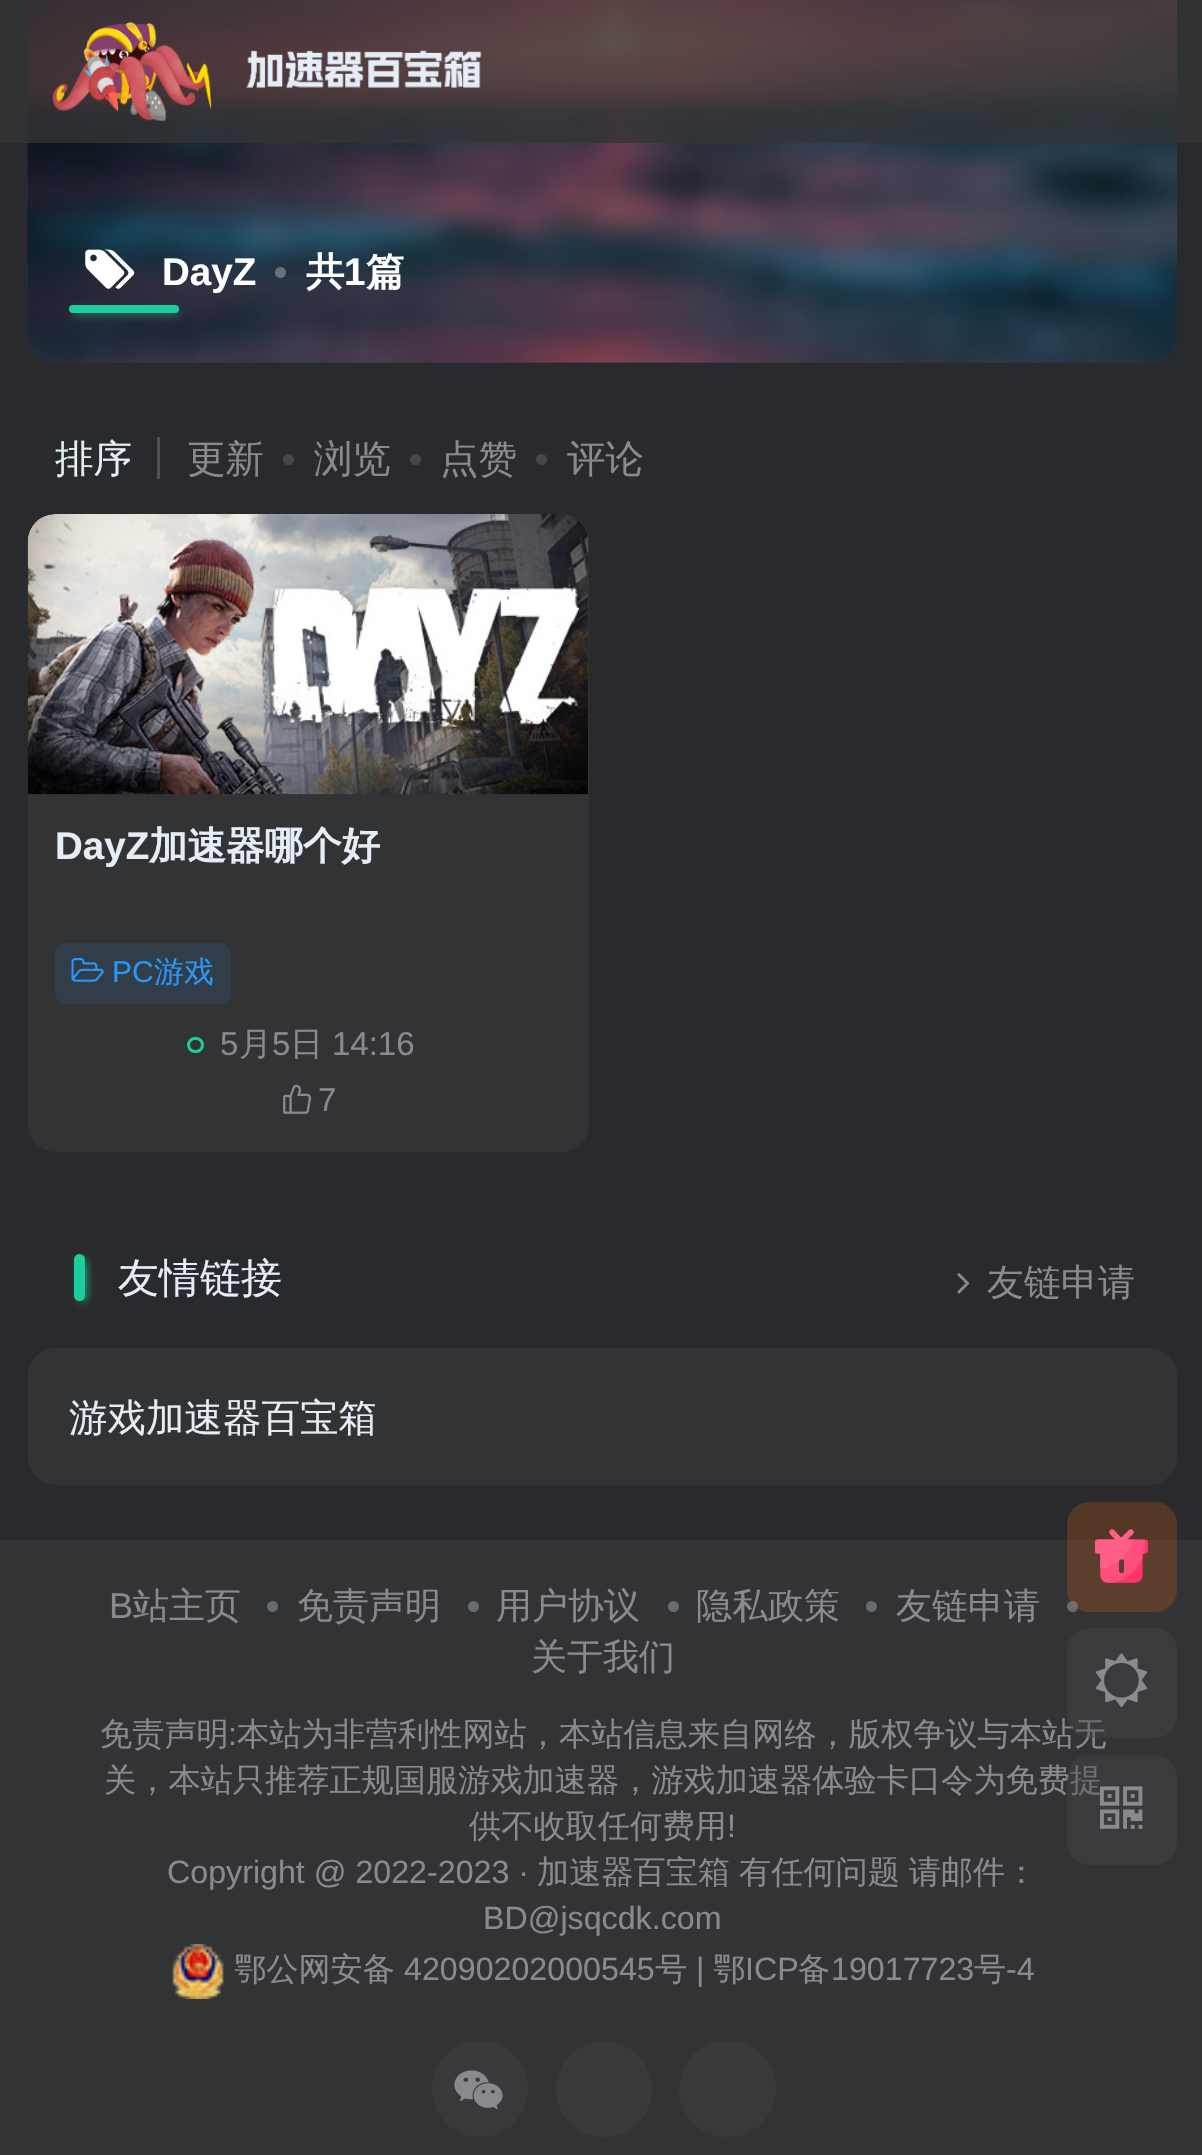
void draw(SkCanvas* canvas) {
    SkPaint paint;
    paint.setAntiAlias(true);
    auto face = [&](const char* family, int weight, float size, bool italic = false) {
        SkFontStyle style(weight, SkFontStyle::kNormal_Width,
            italic ? SkFontStyle::kItalic_Slant : SkFontStyle::kUpright_Slant);
        SkFont result(fontMgr->matchFamilyStyle(family, style), size);
        result.setSubpixel(true);
        return result;
    };
    auto write = [&](const char* s, float x, float y, const SkFont& font, SkColor color) {
        SkPaint ink(SkColor4f::FromColor(color));
        ink.setAntiAlias(true);
        canvas->drawString(s, x, y, font, ink);
    };
    auto writeSpaced = [&](const char* s, float x, float y, const SkFont& font, const SkPaint& ink, float letter, float word) {
        std::vector<SkGlyphID> glyphs(font.countText(s, strlen(s), SkTextEncoding::kUTF8));
        std::vector<float> xs(glyphs.size());
        font.textToGlyphs(s, strlen(s), SkTextEncoding::kUTF8, glyphs);
        font.getXPos(glyphs, xs, x);
        float extra = 0;
        for (size_t i = 0; i < glyphs.size(); i++) {
            xs[i] += extra;
            extra += letter + word * (glyphs[i] == font.unicharToGlyph(' '));
        }
        canvas->drawTextBlob(SkTextBlob::MakeFromPosHGlyphs(glyphs, xs, y, font), 0, 0, ink);
    };
    auto block = [&](float x, float y, float w, float h, SkColor color) {
        SkPaint ink(SkColor4f::FromColor(color));
        ink.setAntiAlias(true);
        canvas->drawRect(SkRect::MakeXYWH(x, y, w, h), ink);
    };
    auto card = [&](float x, float y, float w, float h, float radius, SkColor color) {
        SkPaint ink(SkColor4f::FromColor(color));
        ink.setAntiAlias(true);
        canvas->drawRoundRect(SkRect::MakeXYWH(x, y, w, h), radius, radius, ink);
    };
    auto paste = [&](const char* path, float x, float y, float w, float h) {
        auto image = SkImages::DeferredFromEncodedData(SkData::MakeFromFileName(path));
        canvas->drawImageRect(image, SkRect::MakeXYWH(x, y, w, h), SkSamplingOptions());
    };
    canvas->clear(SkColorSetRGB(41, 42, 45));
    card(28, -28, 1149, 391, 28, SkColorSetRGB(50, 51, 53));
    paste("pic2.png", 27, 0, 1150, 363);
    {
        const SkColor colors[] = {SkColorSetARGB(102, 29, 41, 49), SkColorSetARGB(0, 29, 41, 49)};
        const float stops[] = {0.23f, 0.61f};
        const SkPoint ends[] = {{602, 363}, {602, -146}};
        paint.setShader(SkGradientShader::MakeLinear(ends, colors, stops, 2, SkTileMode::kClamp));
        paint.setAlpha(255);
    }
    canvas->drawRoundRect(SkRect::MakeXYWH(28, -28, 1149, 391), 28, 28, paint);
    block(0, 0, 1202, 143, SkColorSetARGB(204, 50, 51, 53));
    paste("pic1.png", 52, 22, 430, 99);
    block(1100, 50, 1, 1, SkColorSetRGB(72, 66, 69));
    paste("pic3.png", 85, 249, 50, 40);
    auto kFont1 = face("Liberation Sans", 700, 38.5f);
    write("DayZ", 162, 285, kFont1, SK_ColorWHITE);
    paint.setShader(nullptr);
    paint.setColor(SkColorSetARGB(77, 255, 255, 255));
    canvas->drawCircle(280.5f, 272.5f, 5.5f, paint);
    auto kFont2 = face("WenQuanYi Zen Hei", 700, 38.5f);
    write("共", 306, 285, kFont2, SK_ColorWHITE);
    write("1", 344, 285, kFont1, SK_ColorWHITE);
    write("篇", 366, 285, kFont2, SK_ColorWHITE);
    paint.setColor(SkColorSetRGB(29, 205, 155));
    paint.setMaskFilter(SkMaskFilter::MakeBlur(kNormal_SkBlurStyle, 4));
    canvas->drawRoundRect(SkRect::MakeXYWH(74, 311, 105, 3), 1.5f, 1.5f, paint);
    paint.setMaskFilter(nullptr);
    card(69, 305, 110, 8, 4, SkColorSetRGB(29, 205, 155));
    auto kFont3 = face("WenQuanYi Zen Hei", 500, 38.5f);
    write("排序", 55, 472, kFont3, SkColorSetRGB(229, 238, 247));
    block(157, 437, 3, 42, SkColorSetRGB(79, 81, 85));
    write("更新", 187, 472, kFont3, SkColorSetRGB(136, 138, 143));
    paint.setColor(SkColorSetRGB(70, 71, 74));
    canvas->drawCircle(288.5f, 459.5f, 5.5f, paint);
    write("浏览", 314, 472, kFont3, SkColorSetRGB(136, 138, 143));
    canvas->drawCircle(415.5f, 459.5f, 5.5f, paint);
    write("点赞", 440, 472, kFont3, SkColorSetRGB(136, 138, 143));
    canvas->drawCircle(541.5f, 459.5f, 5.5f, paint);
    write("评论", 567, 472, kFont3, SkColorSetRGB(136, 138, 143));
    card(28, 514, 561, 638, 28, SkColorSetRGB(50, 51, 53));
    paste("pic4.png", 27, 514, 561, 281);
    write("DayZ", 55, 859, kFont1, SkColorSetRGB(229, 238, 247));
    write("加速器哪个好", 149, 859, kFont2, SkColorSetRGB(229, 238, 247));
    card(55, 943, 176, 61, 11, SkColorSetRGB(49, 61, 72));
    paste("pic5.png", 71, 958, 33, 24);
    auto kFont4 = face("Liberation Sans", 400, 30);
    write("PC", 112, 982, kFont4, SkColorSetRGB(41, 151, 247));
    auto kFont5 = face("WenQuanYi Zen Hei", 500, 30);
    write("游戏", 154, 982, kFont5, SkColorSetRGB(41, 151, 247));
    paint.setStyle(SkPaint::kStroke_Style);
    paint.setStrokeWidth(3);
    paint.setColor(SkColorSetRGB(29, 205, 155));
    canvas->drawRoundRect(SkRect::MakeXYWH(188.5f, 1038.5f, 14, 13), 6.5f, 6.5f, paint);
    auto kFont6 = face("Liberation Sans", 400, 33);
    write("5", 220, 1055, kFont6, SkColorSetRGB(136, 138, 143));
    auto kFont7 = face("WenQuanYi Zen Hei", 500, 33);
    write("月", 239, 1055, kFont7, SkColorSetRGB(136, 138, 143));
    write("5", 272, 1055, kFont6, SkColorSetRGB(136, 138, 143));
    write("日", 290, 1055, kFont7, SkColorSetRGB(136, 138, 143));
    write("14:16", 332, 1055, kFont6, SkColorSetRGB(136, 138, 143));
    paste("pic6.png", 283, 1084, 29, 30);
    write("7", 318, 1111, kFont6, SkColorSetRGB(136, 138, 143));
    paint.setStyle(SkPaint::kFill_Style);
    paint.setMaskFilter(SkMaskFilter::MakeBlur(kNormal_SkBlurStyle, 4));
    canvas->drawRoundRect(SkRect::MakeXYWH(80, 1260, 6, 41), 3, 3, paint);
    paint.setMaskFilter(nullptr);
    card(74, 1254, 11, 47, 5.5f, SkColorSetRGB(29, 205, 155));
    auto kFont8 = face("WenQuanYi Zen Hei", 500, 41);
    write("友情链接", 118, 1292, kFont8, SkColorSetRGB(229, 238, 247));
    paste("pic7.png", 957, 1273, 13, 21);
    auto kFont9 = face("WenQuanYi Zen Hei", 500, 37);
    write("友链申请", 987, 1295, kFont9, SkColorSetRGB(136, 138, 143));
    card(28, 1348, 1149, 137, 28, SkColorSetRGB(50, 51, 53));
    write("游戏加速器百宝箱", 69, 1431, kFont3, SkColorSetRGB(229, 238, 247));
    block(0, 1540, 1202, 615, SkColorSetRGB(50, 51, 53));
    auto kFont10 = face("Liberation Sans", 400, 36);
    write("B", 109, 1618, kFont10, SkColorSetRGB(136, 138, 143));
    auto kFont11 = face("WenQuanYi Zen Hei", 500, 36);
    write("站主页", 133, 1618, kFont11, SkColorSetRGB(136, 138, 143));
    paint.setColor(SkColorSetRGB(104, 107, 111));
    canvas->drawCircle(272.5f, 1606.5f, 5.5f, paint);
    write("免责声明", 297, 1618, kFont11, SkColorSetRGB(136, 138, 143));
    canvas->drawCircle(473.5f, 1606.5f, 5.5f, paint);
    write("用户协议", 496, 1618, kFont11, SkColorSetRGB(136, 138, 143));
    canvas->drawCircle(673.5f, 1606.5f, 5.5f, paint);
    write("隐私政策", 696, 1618, kFont11, SkColorSetRGB(136, 138, 143));
    canvas->drawCircle(871.5f, 1606.5f, 5.5f, paint);
    write("友链申请", 896, 1618, kFont11, SkColorSetRGB(136, 138, 143));
    canvas->drawCircle(1072.5f, 1606.5f, 5.5f, paint);
    write("关于我们", 531, 1669, kFont11, SkColorSetRGB(136, 138, 143));
    auto kFont12 = face("WenQuanYi Zen Hei", 500, 32.2f);
    write("免责声明", 100, 1745, kFont12, SkColorSetRGB(136, 138, 143));
    auto kFont13 = face("Liberation Sans", 400, 32.2f);
    write(":", 228, 1745, kFont13, SkColorSetRGB(136, 138, 143));
    write("本站为非营利性网站，本站信息来自网络，版权争议与本站无", 237, 1745, kFont12, SkColorSetRGB(136, 138, 143));
    write("关，本站只推荐正规国服游戏加速器，游戏加速器体验卡口令为免费提", 104, 1791, kFont12, SkColorSetRGB(136, 138, 143));
    write("供不收取任何费用", 469, 1837, kFont12, SkColorSetRGB(136, 138, 143));
    write("!", 727, 1837, kFont13, SkColorSetRGB(136, 138, 143));
    write("Copyright @ 2022-2023 ·", 167, 1883, kFont13, SkColorSetRGB(136, 138, 143));
    write("加速器百宝箱", 537, 1883, kFont12, SkColorSetRGB(136, 138, 143));
    paint.setColor(SkColorSetRGB(136, 138, 143));
    writeSpaced("有任何问题 请邮件：", 739, 1883, kFont12, paint, 0, -1);
    write("BD@jsqcdk.com", 483, 1929, kFont13, SkColorSetRGB(136, 138, 143));
    paste("pic8.png", 172, 1944, 52, 55);
    write("鄂公网安备", 234, 1980, kFont12, SkColorSetRGB(136, 138, 143));
    write("42090202000545", 404, 1980, kFont13, SkColorSetRGB(136, 138, 143));
    write("号", 655, 1980, kFont12, SkColorSetRGB(136, 138, 143));
    write("|", 696, 1980, kFont13, SkColorSetRGB(136, 138, 143));
    write("鄂", 713, 1980, kFont12, SkColorSetRGB(136, 138, 143));
    write("ICP", 745, 1980, kFont13, SkColorSetRGB(136, 138, 143));
    write("备", 798, 1980, kFont12, SkColorSetRGB(136, 138, 143));
    write("19017723", 831, 1980, kFont13, SkColorSetRGB(136, 138, 143));
    write("号", 974, 1980, kFont12, SkColorSetRGB(136, 138, 143));
    write("-4", 1006, 1980, kFont13, SkColorSetRGB(136, 138, 143));
    paint.setColor(SkColorSetRGB(56, 57, 59));
    canvas->drawCircle(480, 2089, 48, paint);
    paste("pic9.png", 454, 2070, 49, 40);
    canvas->drawCircle(604, 2089, 48, paint);
    block(577, 2063, 1, 1, SkColorSetRGB(76, 77, 80));
    card(679, 2041, 97, 96, 48, SkColorSetRGB(56, 57, 59));
    card(1067, 1502, 110, 110, 22, SkColorSetARGB(51, 255, 111, 6));
    paste("pic10.png", 1095, 1529, 53, 54);
    card(1067, 1628, 110, 110, 22, SkColorSetARGB(102, 70, 70, 70));
    paste("pic11.png", 1095, 1653, 53, 55);
    card(1067, 1755, 110, 110, 22, SkColorSetARGB(102, 70, 70, 70));
    paste("pic12.png", 1100, 1786, 43, 43);
}
